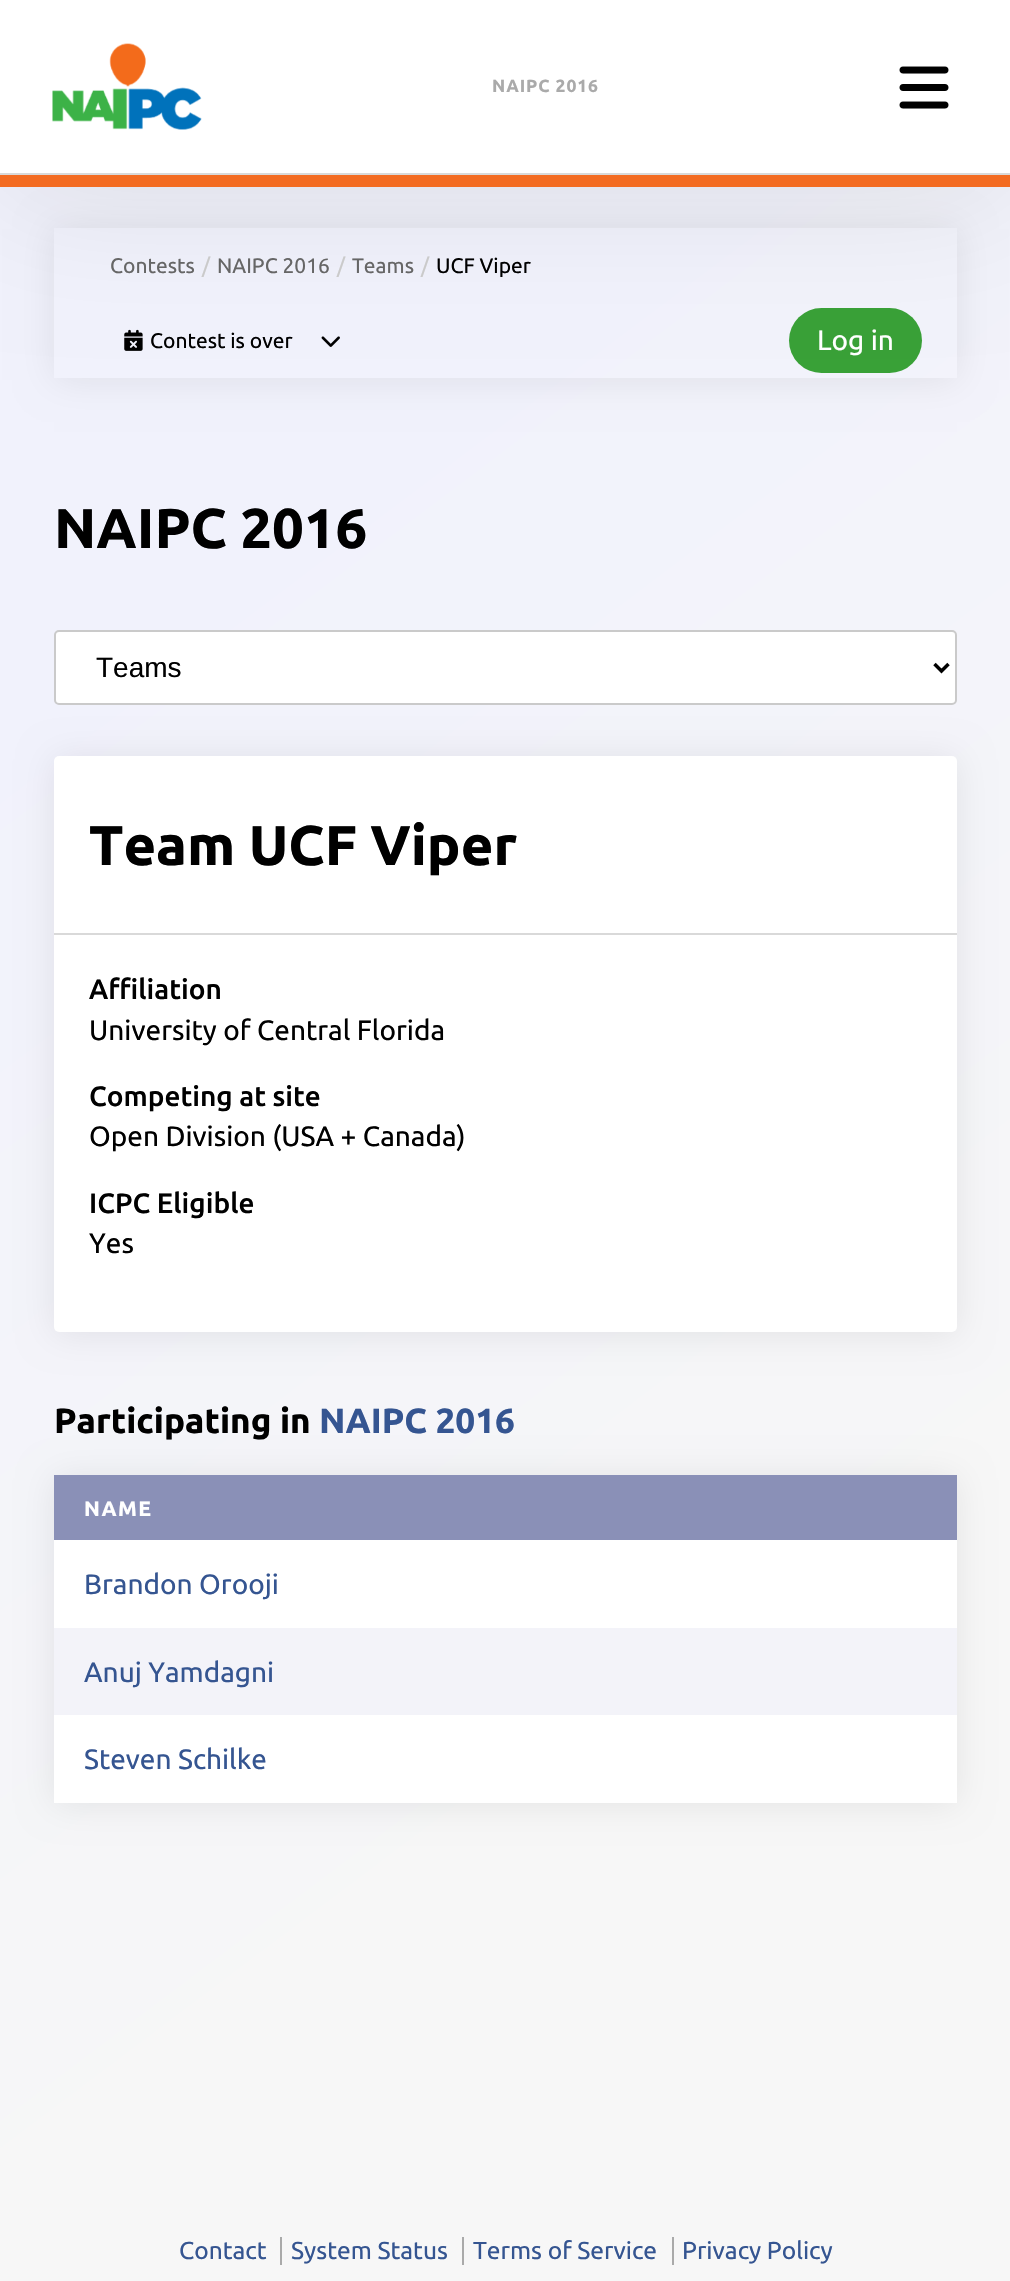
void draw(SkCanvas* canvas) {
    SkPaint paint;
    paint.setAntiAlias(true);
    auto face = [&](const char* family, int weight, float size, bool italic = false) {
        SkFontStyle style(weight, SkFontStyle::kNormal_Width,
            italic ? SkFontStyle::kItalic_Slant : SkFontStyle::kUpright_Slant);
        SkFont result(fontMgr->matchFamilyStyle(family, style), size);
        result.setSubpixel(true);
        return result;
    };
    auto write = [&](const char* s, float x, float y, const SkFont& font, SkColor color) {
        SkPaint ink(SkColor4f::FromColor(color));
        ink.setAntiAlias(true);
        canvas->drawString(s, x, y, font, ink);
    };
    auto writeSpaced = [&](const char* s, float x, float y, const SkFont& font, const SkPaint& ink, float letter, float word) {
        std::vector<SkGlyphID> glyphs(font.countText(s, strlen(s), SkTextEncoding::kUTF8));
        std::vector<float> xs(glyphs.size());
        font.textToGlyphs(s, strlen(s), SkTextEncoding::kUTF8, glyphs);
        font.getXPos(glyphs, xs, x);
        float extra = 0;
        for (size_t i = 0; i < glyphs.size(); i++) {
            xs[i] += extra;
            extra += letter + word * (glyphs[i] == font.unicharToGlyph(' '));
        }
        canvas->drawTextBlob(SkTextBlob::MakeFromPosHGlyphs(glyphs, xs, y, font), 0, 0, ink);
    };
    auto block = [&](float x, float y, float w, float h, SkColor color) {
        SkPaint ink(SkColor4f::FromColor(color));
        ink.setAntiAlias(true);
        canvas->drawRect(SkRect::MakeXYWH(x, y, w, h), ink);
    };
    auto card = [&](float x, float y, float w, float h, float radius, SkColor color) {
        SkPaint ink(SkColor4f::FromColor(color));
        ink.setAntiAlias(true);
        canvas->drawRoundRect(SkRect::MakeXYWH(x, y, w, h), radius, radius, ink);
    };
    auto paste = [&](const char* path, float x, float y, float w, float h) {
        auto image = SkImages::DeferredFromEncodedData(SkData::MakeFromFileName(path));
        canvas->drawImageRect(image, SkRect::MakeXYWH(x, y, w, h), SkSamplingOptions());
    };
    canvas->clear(SK_ColorWHITE);
    {
        const SkColor colors[] = {SkColorSetRGB(241, 242, 252), SkColorSetRGB(247, 247, 247)};
        const float stops[] = {0.22f, 0.75f};
        const SkPoint ends[] = {{-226, 170}, {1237, 2112}};
        paint.setShader(SkGradientShader::MakeLinear(ends, colors, stops, 2, SkTileMode::kClamp));
        paint.setAlpha(255);
    }
    canvas->drawRect(SkRect::MakeXYWH(0, 187, 1010, 2094), paint);
    canvas->save();
    canvas->clipPath(SkPathBuilder(SkPathFillType::kEvenOdd).moveTo(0, 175).lineTo(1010, 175).lineTo(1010, 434).lineTo(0, 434).close().moveTo(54, 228).lineTo(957, 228).lineTo(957, 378).lineTo(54, 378).close().detach(), true);
    paint.setShader(nullptr);
    paint.setColor(SkColorSetARGB(20, 0, 0, 0));
    paint.setMaskFilter(SkMaskFilter::MakeBlur(kNormal_SkBlurStyle, 17.5f));
    canvas->drawRect(SkRect::MakeXYWH(54, 229, 903, 151), paint);
    paint.setMaskFilter(nullptr);
    canvas->restore();
    paste("pic3.png", 124, 329, 19, 22);
    paste("pic4.png", 321, 336, 19, 11);
    card(789, 308, 133, 65, 32.5f, SkColorSetRGB(57, 161, 55));
    paint.setColor(SkColorSetARGB(23, 0, 0, 0));
    paint.setMaskFilter(SkMaskFilter::MakeBlur(kNormal_SkBlurStyle, 70));
    canvas->drawRect(SkRect::MakeXYWH(0, 4, 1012, 187), paint);
    paint.setMaskFilter(nullptr);
    block(0, 0, 1010, 173, SK_ColorWHITE);
    block(0, 173, 1010, 2, SkColorSetRGB(217, 217, 217));
    paste("pic1.png", 52, 43, 150, 87);
    auto kFont1 = face("Ubuntu", 700, 17.5f);
    paint.setColor(SkColorSetRGB(170, 170, 170));
    writeSpaced("NAIPC 2016", 492, 92, kFont1, paint, 0.9f, 0);
    paste("pic2.png", 899, 66, 50, 43);
    block(0, 175, 1010, 12, SkColorSetRGB(243, 107, 33));
    auto kFont2 = face("Ubuntu", 400, 21);
    write("Contests", 110, 273, kFont2, SkColorSetRGB(102, 102, 102));
    write("/", 202, 273, kFont2, SkColorSetRGB(202, 202, 202));
    write("NAIPC 2016", 217, 273, kFont2, SkColorSetRGB(102, 102, 102));
    write("/", 337, 273, kFont2, SkColorSetRGB(202, 202, 202));
    write("Teams", 352, 273, kFont2, SkColorSetRGB(102, 102, 102));
    write("/", 421, 273, kFont2, SkColorSetRGB(202, 202, 202));
    write("UCF Viper", 436, 273, kFont2, SK_ColorBLACK);
    write("Contest is over", 150, 348, kFont2, SK_ColorBLACK);
    auto kFont3 = face("Ubuntu", 400, 28);
    write("Log in", 817, 350, kFont3, SK_ColorWHITE);
    auto kFont4 = face("Ubuntu", 700, 56);
    write("NAIPC 2016", 54, 548, kFont4, SK_ColorBLACK);
    paint.setColor(SkColorSetARGB(20, 0, 0, 0));
    paint.setMaskFilter(SkMaskFilter::MakeBlur(kNormal_SkBlurStyle, 17.5f));
    canvas->drawRoundRect(SkRect::MakeXYWH(54, 758, 903, 576), 5, 5, paint);
    paint.setMaskFilter(nullptr);
    paint.setColor(SK_ColorWHITE);
    canvas->drawRoundRect(SkRect::MakeXYWH(55, 631, 901, 73), 4, 4, paint);
    paint.setStyle(SkPaint::kStroke_Style);
    paint.setStrokeWidth(2);
    paint.setColor(SkColorSetRGB(202, 202, 202));
    canvas->drawRoundRect(SkRect::MakeXYWH(55, 631, 901, 73), 4, 4, paint);
    paint.setStrokeWidth(3.5f);
    paint.setColor(SK_ColorBLACK);
    canvas->drawPath(SkPathBuilder().moveTo(934.5f, 664).lineTo(941.5f, 671).lineTo(948.5f, 664).detach(), paint);
    auto kFont5 = face("Liberation Sans", 400, 28);
    write("Teams", 96, 677, kFont5, SK_ColorBLACK);
    card(54, 756, 903, 576, 5, SK_ColorWHITE);
    write("Team UCF Viper", 89, 865, kFont4, SK_ColorBLACK);
    block(54, 933, 903, 2, SkColorSetRGB(217, 217, 217));
    auto kFont6 = face("Ubuntu", 500, 28);
    write("Affiliation", 89, 999, kFont6, SK_ColorBLACK);
    write("University of Central Florida", 89, 1040, kFont3, SK_ColorBLACK);
    write("Competing at site", 89, 1106, kFont6, SK_ColorBLACK);
    write("Open Division (USA + Canada)", 89, 1146, kFont3, SK_ColorBLACK);
    write("ICPC Eligible", 89, 1213, kFont6, SK_ColorBLACK);
    write("Yes", 89, 1253, kFont3, SK_ColorBLACK);
    auto kFont7 = face("Ubuntu", 700, 35);
    write("Participating in", 54, 1433, kFont7, SK_ColorBLACK);
    write("NAIPC 2016", 319, 1433, kFont7, SkColorSetRGB(53, 85, 145));
    paint.setStyle(SkPaint::kFill_Style);
    paint.setColor(SkColorSetARGB(20, 0, 0, 0));
    paint.setMaskFilter(SkMaskFilter::MakeBlur(kNormal_SkBlurStyle, 17.5f));
    canvas->drawRoundRect(SkRect::MakeXYWH(54, 1477, 903, 327), 5, 5, paint);
    paint.setMaskFilter(nullptr);
    block(54, 1540, 903, 88, SK_ColorWHITE);
    block(54, 1475, 903, 65, SkColorSetRGB(138, 144, 183));
    auto kFont8 = face("Ubuntu", 700, 21);
    paint.setColor(SK_ColorWHITE);
    writeSpaced("NAME", 84, 1516, kFont8, paint, 1.5f, 0);
    write("Brandon Orooji", 84, 1594, kFont3, SkColorSetRGB(53, 85, 145));
    block(54, 1628, 903, 87, SkColorSetRGB(243, 243, 249));
    write("Anuj Yamdagni", 84, 1682, kFont3, SkColorSetRGB(53, 85, 145));
    block(54, 1715, 903, 88, SK_ColorWHITE);
    write("Steven Schilke", 84, 1769, kFont3, SkColorSetRGB(53, 85, 145));
    auto kFont9 = face("Ubuntu", 400, 24.5f);
    write("Contact", 179, 2259, kFont9, SkColorSetRGB(53, 85, 145));
    write("System Status", 291, 2259, kFont9, SkColorSetRGB(53, 85, 145));
    block(280, 2237, 2, 28, SkColorSetRGB(170, 170, 170));
    write("Terms of Service", 473, 2259, kFont9, SkColorSetRGB(53, 85, 145));
    block(462, 2237, 2, 28, SkColorSetRGB(170, 170, 170));
    write("Privacy Policy", 682, 2259, kFont9, SkColorSetRGB(53, 85, 145));
    block(672, 2237, 2, 28, SkColorSetRGB(170, 170, 170));
}
